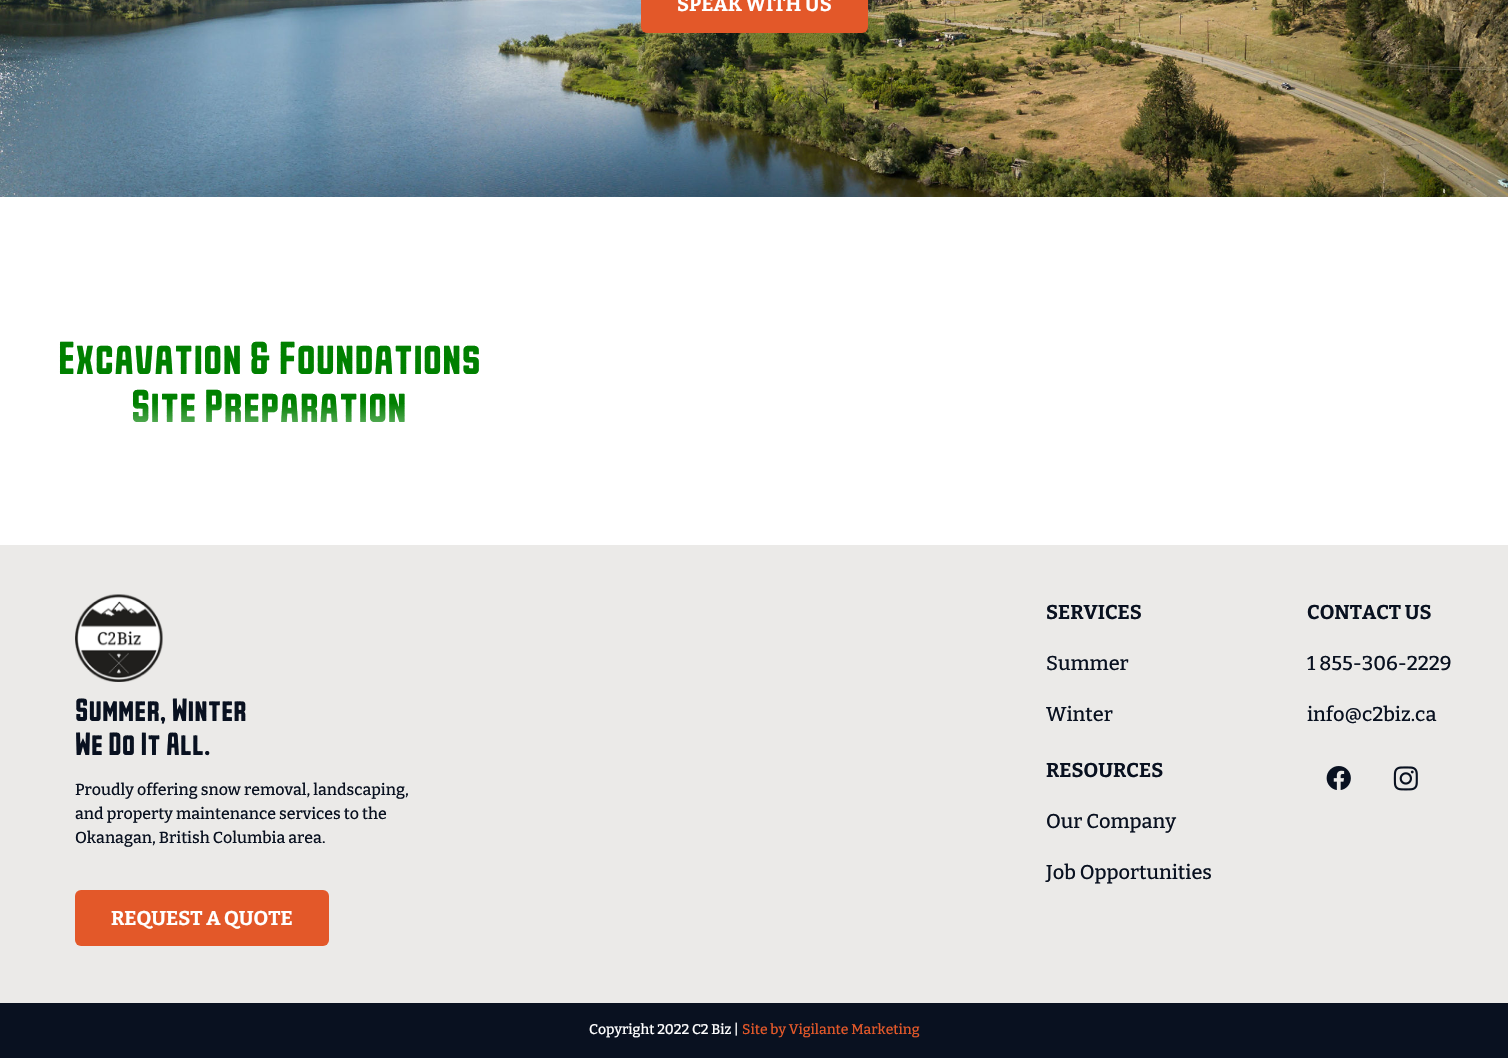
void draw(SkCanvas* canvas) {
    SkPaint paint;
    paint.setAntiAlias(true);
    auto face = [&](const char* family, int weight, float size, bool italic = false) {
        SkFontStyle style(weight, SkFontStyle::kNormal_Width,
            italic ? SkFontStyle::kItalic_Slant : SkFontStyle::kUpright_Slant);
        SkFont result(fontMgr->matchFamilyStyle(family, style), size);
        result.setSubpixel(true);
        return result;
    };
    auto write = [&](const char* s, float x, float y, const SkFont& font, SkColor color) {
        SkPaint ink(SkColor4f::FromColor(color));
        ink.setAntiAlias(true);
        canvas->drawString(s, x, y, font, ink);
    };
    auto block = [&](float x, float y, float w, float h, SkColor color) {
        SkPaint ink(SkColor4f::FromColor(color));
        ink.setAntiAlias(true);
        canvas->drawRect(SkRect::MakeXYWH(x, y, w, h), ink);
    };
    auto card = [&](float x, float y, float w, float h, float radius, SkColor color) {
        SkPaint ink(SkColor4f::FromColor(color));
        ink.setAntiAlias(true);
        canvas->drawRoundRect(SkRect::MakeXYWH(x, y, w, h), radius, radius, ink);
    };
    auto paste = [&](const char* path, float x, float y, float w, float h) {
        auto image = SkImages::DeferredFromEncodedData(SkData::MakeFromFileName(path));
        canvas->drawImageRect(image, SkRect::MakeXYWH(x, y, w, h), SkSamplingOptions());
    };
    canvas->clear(SK_ColorWHITE);
    paste("pic1.png", 0, 0, 1508, 197);
    card(641, -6, 227, 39, 6, SkColorSetRGB(227, 88, 41));
    auto kFont1 = face("Bitter", 700, 20);
    write("SPEAK WITH US", 677, 11, kFont1, SK_ColorWHITE);
    auto kFont2 = face("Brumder", 400, 40.25f);
    write("Excavation & Foundations", 58, 374, kFont2, SkColorSetRGB(0, 128, 0));
    write("Site Preparation", 131, 422, kFont2, SkColorSetRGB(0, 128, 0));
    {
        const SkColor colors[] = {SkColorSetARGB(0, 255, 255, 255), SK_ColorWHITE};
        const float stops[] = {0, 1};
        const SkPoint ends[] = {{269, 403}, {269, 465}};
        paint.setShader(SkGradientShader::MakeLinear(ends, colors, stops, 2, SkTileMode::kClamp));
        paint.setAlpha(255);
    }
    canvas->drawRect(SkRect::MakeXYWH(133, 404, 272, 19), paint);
    block(0, 545, 1508, 458, SkColorSetRGB(235, 234, 232));
    write("SERVICES", 1046, 619, kFont1, SkColorSetRGB(9, 17, 32));
    auto kFont3 = face("Bitter", 500, 20);
    write("Summer", 1046, 670, kFont3, SkColorSetRGB(9, 17, 32));
    write("Winter", 1046, 721, kFont3, SkColorSetRGB(9, 17, 32));
    write("RESOURCES", 1046, 777, kFont1, SkColorSetRGB(9, 17, 32));
    write("Our Company", 1046, 828, kFont3, SkColorSetRGB(9, 17, 32));
    write("Job Opportunities", 1046, 879, kFont3, SkColorSetRGB(9, 17, 32));
    write("CONTACT US", 1307, 619, kFont1, SkColorSetRGB(9, 17, 32));
    write("1 855-306-2229", 1307, 670, kFont3, SkColorSetRGB(9, 17, 32));
    write("info@c2biz.ca", 1307, 721, kFont3, SkColorSetRGB(9, 17, 32));
    paste("pic2.png", 1326, 766, 25, 24);
    paste("pic3.png", 1393, 766, 25, 25);
    paste("pic4.png", 75, 594, 88, 88);
    auto kFont4 = face("Brumder", 400, 28);
    write("Summer, Winter", 75, 721, kFont4, SkColorSetRGB(9, 17, 32));
    write("We Do It All.", 75, 755, kFont4, SkColorSetRGB(9, 17, 32));
    auto kFont5 = face("Bitter", 500, 16);
    write("Proudly offering snow removal, landscaping,", 75, 795, kFont5, SkColorSetRGB(9, 17, 32));
    write("and property maintenance services to the", 75, 819, kFont5, SkColorSetRGB(9, 17, 32));
    write("Okanagan, British Columbia area.", 75, 843, kFont5, SkColorSetRGB(9, 17, 32));
    card(75, 890, 254, 56, 6, SkColorSetRGB(227, 88, 41));
    write("REQUEST A QUOTE", 111, 925, kFont1, SK_ColorWHITE);
    block(0, 1003, 1508, 55, SkColorSetRGB(9, 17, 32));
    auto kFont6 = face("Bitter", 500, 14);
    write("Copyright 2022 C2 Biz |", 589, 1034, kFont6, SK_ColorWHITE);
    write("Site by Vigilante Marketing", 742, 1034, kFont6, SkColorSetRGB(227, 88, 41));
}
